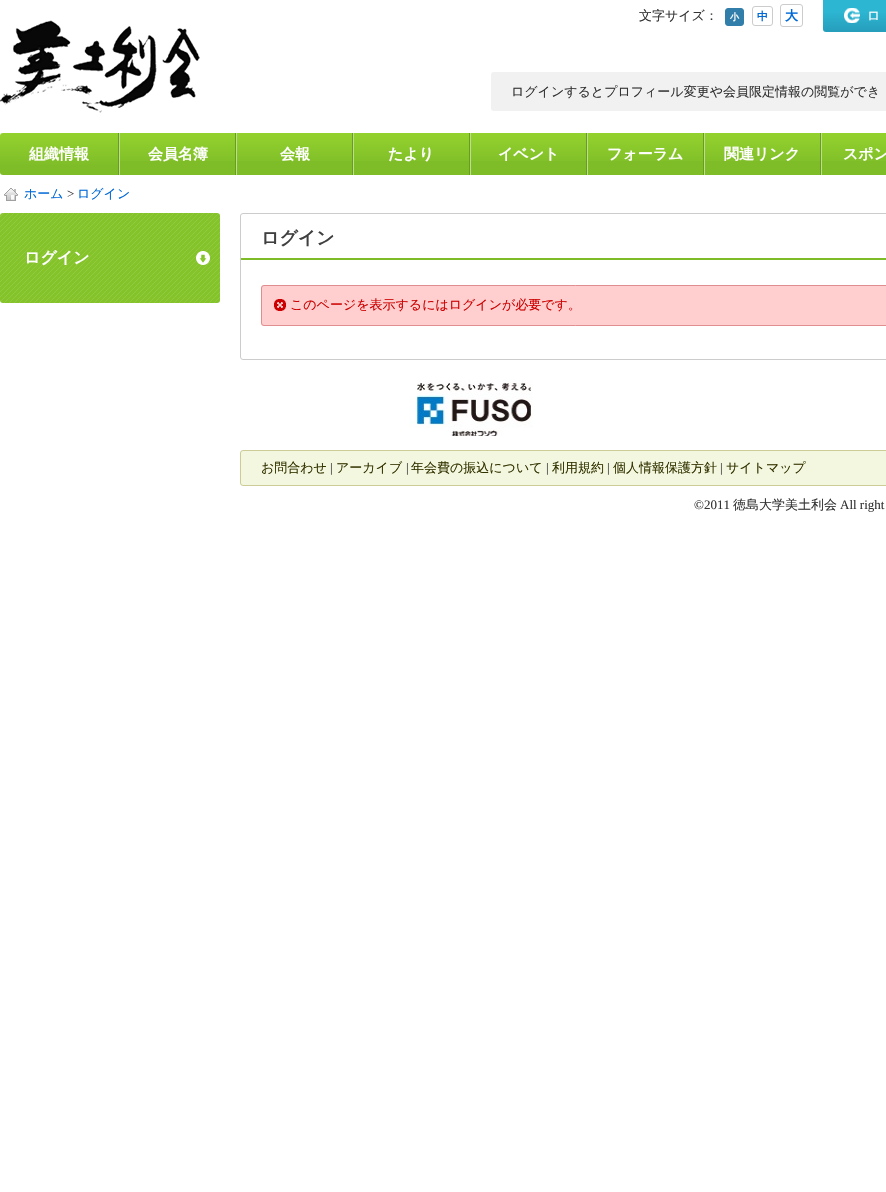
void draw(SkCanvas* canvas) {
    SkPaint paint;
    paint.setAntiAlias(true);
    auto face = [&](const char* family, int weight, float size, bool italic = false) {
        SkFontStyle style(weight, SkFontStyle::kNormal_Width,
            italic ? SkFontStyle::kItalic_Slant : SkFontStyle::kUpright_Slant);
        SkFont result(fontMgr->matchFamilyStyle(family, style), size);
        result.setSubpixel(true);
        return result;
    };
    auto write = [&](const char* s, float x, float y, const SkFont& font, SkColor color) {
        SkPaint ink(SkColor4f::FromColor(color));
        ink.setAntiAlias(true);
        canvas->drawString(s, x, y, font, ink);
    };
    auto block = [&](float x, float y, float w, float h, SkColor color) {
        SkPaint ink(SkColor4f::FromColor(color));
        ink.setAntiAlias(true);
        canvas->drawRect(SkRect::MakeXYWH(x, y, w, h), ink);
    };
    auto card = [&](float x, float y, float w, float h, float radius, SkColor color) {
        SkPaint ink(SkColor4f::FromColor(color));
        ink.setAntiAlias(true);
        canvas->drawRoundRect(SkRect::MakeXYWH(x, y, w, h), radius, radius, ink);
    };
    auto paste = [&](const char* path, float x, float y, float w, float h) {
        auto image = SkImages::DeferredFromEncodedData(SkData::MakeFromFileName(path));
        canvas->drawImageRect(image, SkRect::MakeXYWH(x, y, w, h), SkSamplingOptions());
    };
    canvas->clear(SK_ColorWHITE);
    paste("pic1.png", 0, 20, 200, 93);
    auto kFont1 = face("WenQuanYi Zen Hei", 500, 13);
    write("文字サイズ：", 639, 20, kFont1, SkColorSetRGB(51, 51, 51));
    paint.setColor(SkColorSetRGB(48, 126, 169));
    canvas->drawRoundRect(SkRect::MakeXYWH(725.5f, 8.5f, 18, 17), 2.5f, 2.5f, paint);
    paint.setStyle(SkPaint::kStroke_Style);
    paint.setStrokeWidth(1);
    canvas->drawRoundRect(SkRect::MakeXYWH(725.5f, 8.5f, 18, 17), 2.5f, 2.5f, paint);
    auto kFont2 = face("WenQuanYi Zen Hei", 700, 9);
    write("小", 730, 20, kFont2, SK_ColorWHITE);
    paint.setColor(SkColorSetRGB(204, 204, 204));
    canvas->drawRoundRect(SkRect::MakeXYWH(752.5f, 6.5f, 20, 19), 2.5f, 2.5f, paint);
    auto kFont3 = face("WenQuanYi Zen Hei", 700, 11);
    write("中", 757, 20, kFont3, SkColorSetRGB(0, 105, 214));
    canvas->drawRoundRect(SkRect::MakeXYWH(780.5f, 4.5f, 22, 22), 2.5f, 2.5f, paint);
    auto kFont4 = face("WenQuanYi Zen Hei", 700, 13);
    write("大", 785, 20, kFont4, SkColorSetRGB(0, 105, 214));
    paste("pic2.png", 823, 0, 63, 32);
    paste("pic3.png", 844, 8, 16, 15);
    write("ロ", 867, 20, kFont1, SK_ColorWHITE);
    card(491, 72, 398, 39, 3, SkColorSetRGB(241, 241, 241));
    write("ログインするとプロフィール変更や会員限定情報の閲覧ができ", 511, 96, kFont1, SkColorSetRGB(51, 51, 51));
    paste("pic4.png", 0, 133, 118, 42);
    block(118, 133, 1, 42, SkColorSetRGB(103, 158, 27));
    auto kFont5 = face("WenQuanYi Zen Hei", 700, 15);
    write("組織情報", 29, 159, kFont5, SK_ColorWHITE);
    block(120, 161, 115, 14, SkColorSetRGB(126, 188, 40));
    paste("pic5.png", 120, 133, 115, 28);
    block(235, 133, 1, 42, SkColorSetRGB(103, 158, 27));
    block(119, 133, 1, 42, SkColorSetRGB(190, 221, 147));
    write("会員名簿", 148, 159, kFont5, SK_ColorWHITE);
    block(237, 161, 115, 14, SkColorSetRGB(126, 188, 40));
    paste("pic5.png", 237, 133, 115, 28);
    block(352, 133, 1, 42, SkColorSetRGB(103, 158, 27));
    block(236, 133, 1, 42, SkColorSetRGB(190, 221, 147));
    write("会報", 280, 159, kFont5, SK_ColorWHITE);
    block(354, 161, 115, 14, SkColorSetRGB(126, 188, 40));
    paste("pic5.png", 354, 133, 115, 28);
    block(469, 133, 1, 42, SkColorSetRGB(103, 158, 27));
    block(353, 133, 1, 42, SkColorSetRGB(190, 221, 147));
    write("たより", 388, 159, kFont5, SK_ColorWHITE);
    block(471, 161, 115, 14, SkColorSetRGB(126, 188, 40));
    paste("pic5.png", 471, 133, 115, 28);
    block(586, 133, 1, 42, SkColorSetRGB(103, 158, 27));
    block(470, 133, 1, 42, SkColorSetRGB(190, 221, 147));
    write("イベント", 498, 159, kFont5, SK_ColorWHITE);
    block(588, 161, 115, 14, SkColorSetRGB(126, 188, 40));
    paste("pic5.png", 588, 133, 115, 28);
    block(703, 133, 1, 42, SkColorSetRGB(103, 158, 27));
    block(587, 133, 1, 42, SkColorSetRGB(190, 221, 147));
    write("フォーラム", 607, 159, kFont5, SK_ColorWHITE);
    block(705, 161, 115, 14, SkColorSetRGB(126, 188, 40));
    paste("pic5.png", 705, 133, 115, 28);
    block(820, 133, 1, 42, SkColorSetRGB(103, 158, 27));
    block(704, 133, 1, 42, SkColorSetRGB(190, 221, 147));
    write("関連リンク", 724, 159, kFont5, SK_ColorWHITE);
    block(822, 161, 64, 14, SkColorSetRGB(126, 188, 40));
    paste("pic6.png", 822, 133, 64, 28);
    block(821, 133, 1, 42, SkColorSetRGB(190, 221, 147));
    write("スポン", 843, 159, kFont5, SK_ColorWHITE);
    paste("pic7.png", 4, 188, 14, 13);
    write("ホーム", 24, 198, kFont1, SkColorSetRGB(0, 105, 214));
    auto kFont6 = face("Liberation Serif", 400, 13);
    write(">", 67, 198, kFont6, SkColorSetRGB(51, 51, 51));
    write("ログイン", 77, 198, kFont1, SkColorSetRGB(0, 105, 214));
    paste("pic8.png", 0, 213, 220, 90);
    auto kFont7 = face("WenQuanYi Zen Hei", 700, 16);
    write("ログイン", 24, 263, kFont7, SK_ColorWHITE);
    canvas->drawRoundRect(SkRect::MakeXYWH(240.5f, 213.5f, 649, 146), 2.5f, 2.5f, paint);
    block(241, 258, 645, 2, SkColorSetRGB(125, 188, 39));
    auto kFont8 = face("WenQuanYi Zen Hei", 700, 18);
    write("ログイン", 261, 244, kFont8, SkColorSetRGB(64, 64, 64));
    card(261, 285, 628, 41, 3, SkColorSetRGB(255, 206, 206));
    paste("pic9.png", 274, 299, 12, 12);
    paint.setColor(SkColorSetRGB(223, 143, 143));
    canvas->drawRoundRect(SkRect::MakeXYWH(261.5f, 285.5f, 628, 40), 2.5f, 2.5f, paint);
    write("このページを表示するにはログインが必要です。", 290, 309, kFont1, SkColorSetRGB(204, 0, 0));
    paste("pic10.png", 409, 380, 124, 56);
    paint.setStyle(SkPaint::kFill_Style);
    paint.setColor(SkColorSetRGB(243, 247, 223));
    canvas->drawRoundRect(SkRect::MakeXYWH(240.5f, 450.5f, 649, 35), 2.5f, 2.5f, paint);
    paint.setStyle(SkPaint::kStroke_Style);
    paint.setColor(SkColorSetRGB(204, 204, 153));
    canvas->drawRoundRect(SkRect::MakeXYWH(240.5f, 450.5f, 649, 35), 2.5f, 2.5f, paint);
    write("お問合わせ", 261, 472, kFont1, SkColorSetRGB(51, 51, 0));
    write("|", 330, 472, kFont6, SkColorSetRGB(51, 51, 51));
    write("アーカイブ", 336, 472, kFont1, SkColorSetRGB(51, 51, 0));
    write("|", 406, 472, kFont6, SkColorSetRGB(51, 51, 51));
    write("年会費の振込について", 411, 472, kFont1, SkColorSetRGB(51, 51, 0));
    write("|", 546, 472, kFont6, SkColorSetRGB(51, 51, 51));
    write("利用規約", 552, 472, kFont1, SkColorSetRGB(51, 51, 0));
    write("|", 607, 472, kFont6, SkColorSetRGB(51, 51, 51));
    write("個人情報保護方針", 613, 472, kFont1, SkColorSetRGB(51, 51, 0));
    write("|", 720, 472, kFont6, SkColorSetRGB(51, 51, 51));
    write("サイトマップ", 726, 472, kFont1, SkColorSetRGB(51, 51, 0));
    write("©2011", 694, 509, kFont6, SkColorSetRGB(51, 51, 51));
    write("徳島大学美土利会", 733, 509, kFont1, SkColorSetRGB(51, 51, 51));
    write("All right", 840, 509, kFont6, SkColorSetRGB(51, 51, 51));
}
